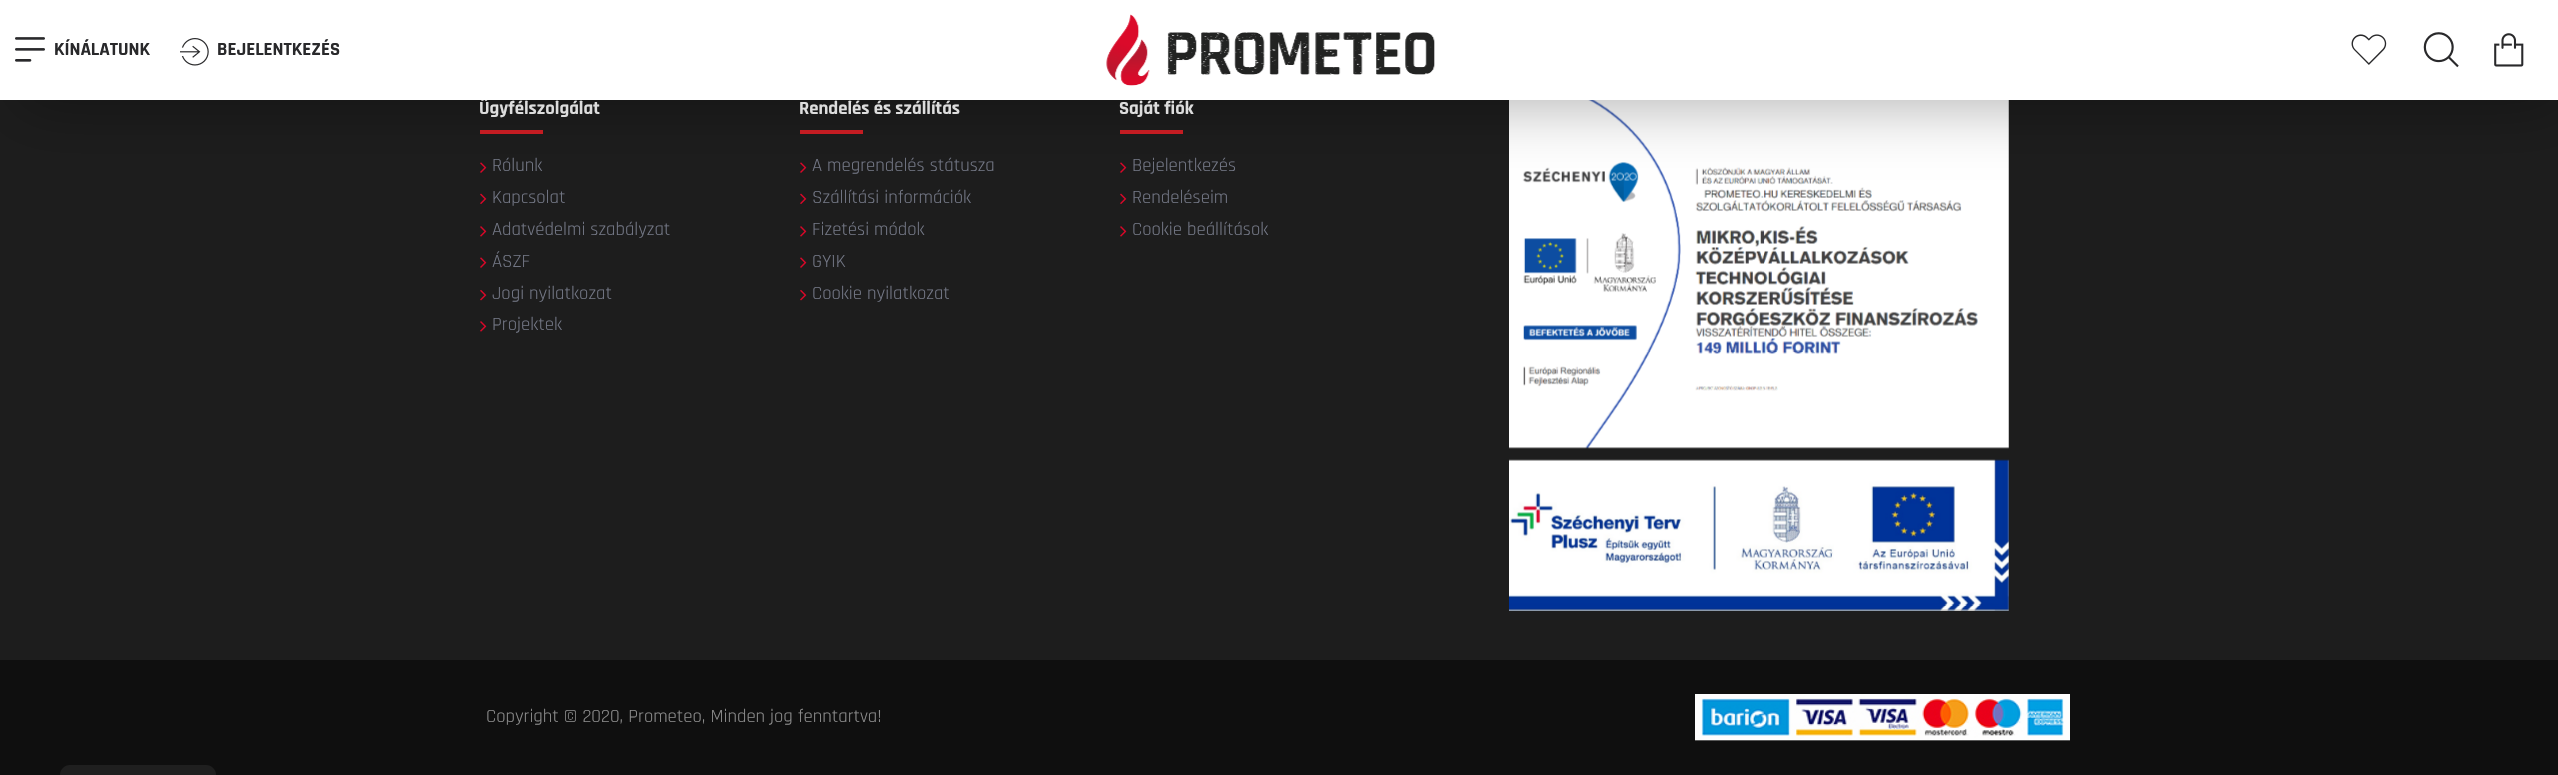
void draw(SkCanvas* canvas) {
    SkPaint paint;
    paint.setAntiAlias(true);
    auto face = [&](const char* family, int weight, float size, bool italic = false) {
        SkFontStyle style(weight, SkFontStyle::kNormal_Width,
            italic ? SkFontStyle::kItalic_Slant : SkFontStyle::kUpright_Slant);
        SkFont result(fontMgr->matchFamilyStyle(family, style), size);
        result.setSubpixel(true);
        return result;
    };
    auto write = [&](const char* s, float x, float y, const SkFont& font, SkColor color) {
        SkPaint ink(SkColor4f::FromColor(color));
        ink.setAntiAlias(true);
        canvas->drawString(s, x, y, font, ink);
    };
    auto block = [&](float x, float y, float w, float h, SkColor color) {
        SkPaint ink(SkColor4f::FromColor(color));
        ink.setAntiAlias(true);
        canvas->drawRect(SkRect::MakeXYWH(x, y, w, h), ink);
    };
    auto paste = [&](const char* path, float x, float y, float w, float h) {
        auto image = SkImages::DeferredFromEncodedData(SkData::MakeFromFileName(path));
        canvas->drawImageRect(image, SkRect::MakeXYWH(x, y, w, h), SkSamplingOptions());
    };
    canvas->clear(SkColorSetRGB(29, 29, 29));
    block(480, 130, 63, 4, SkColorSetRGB(208, 30, 36));
    paste("pic7.png", 480, 162, 7, 11);
    paste("pic8.png", 480, 193, 7, 11);
    block(800, 130, 63, 4, SkColorSetRGB(208, 30, 36));
    paste("pic7.png", 800, 162, 7, 11);
    paste("pic8.png", 800, 193, 7, 11);
    block(1120, 130, 63, 4, SkColorSetRGB(208, 30, 36));
    paste("pic7.png", 1120, 162, 7, 11);
    paste("pic8.png", 1120, 193, 7, 11);
    paste("pic11.png", 1509, 100, 500, 349);
    paint.setColor(SkColorSetARGB(77, 0, 0, 0));
    paint.setMaskFilter(SkMaskFilter::MakeBlur(kNormal_SkBlurStyle, 31));
    canvas->drawRect(SkRect::MakeXYWH(19, -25, 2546, 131), paint);
    paint.setMaskFilter(nullptr);
    auto kFont1 = face("Rajdhani", 700, 18.75f);
    write("Ügyfélszolgálat", 479, 114, kFont1, SkColorSetRGB(221, 221, 221));
    block(0, 0, 2558, 100, SK_ColorWHITE);
    paste("pic1.png", 15, 37, 30, 25);
    write("KÍNÁLATUNK", 54, 55, kFont1, SkColorSetRGB(41, 41, 43));
    paste("pic2.png", 180, 38, 29, 28);
    write("BEJELENTKEZÉS", 217, 55, kFont1, SkColorSetRGB(41, 41, 43));
    paste("pic3.png", 1106, 14, 329, 72);
    paste("pic4.png", 2351, 34, 36, 31);
    paste("pic5.png", 2423, 32, 36, 36);
    paste("pic6.png", 2494, 33, 30, 34);
    auto kFont2 = face("Rajdhani", 400, 18.75f);
    write("Rólunk", 492, 171, kFont2, SkColorSetRGB(114, 118, 132));
    write("Kapcsolat", 492, 203, kFont2, SkColorSetRGB(114, 118, 132));
    paste("pic9.png", 480, 226, 7, 11);
    write("Adatvédelmi szabályzat", 492, 235, kFont2, SkColorSetRGB(114, 118, 132));
    paste("pic7.png", 480, 257, 7, 11);
    write("ÁSZF", 492, 267, kFont2, SkColorSetRGB(114, 118, 132));
    paste("pic10.png", 480, 290, 7, 11);
    write("Jogi nyilatkozat", 492, 299, kFont2, SkColorSetRGB(114, 118, 132));
    paste("pic9.png", 480, 321, 7, 11);
    write("Projektek", 492, 330, kFont2, SkColorSetRGB(114, 118, 132));
    write("Rendelés és szállítás", 799, 114, kFont1, SkColorSetRGB(221, 221, 221));
    write("A megrendelés státusza", 812, 171, kFont2, SkColorSetRGB(114, 118, 132));
    write("Szállítási információk", 812, 203, kFont2, SkColorSetRGB(114, 118, 132));
    paste("pic9.png", 800, 226, 7, 11);
    write("Fizetési módok", 812, 235, kFont2, SkColorSetRGB(114, 118, 132));
    paste("pic7.png", 800, 257, 7, 11);
    write("GYIK", 812, 267, kFont2, SkColorSetRGB(114, 118, 132));
    paste("pic10.png", 800, 290, 7, 11);
    write("Cookie nyilatkozat", 812, 299, kFont2, SkColorSetRGB(114, 118, 132));
    write("Saját fiók", 1119, 114, kFont1, SkColorSetRGB(221, 221, 221));
    write("Bejelentkezés", 1132, 171, kFont2, SkColorSetRGB(114, 118, 132));
    write("Rendeléseim", 1132, 203, kFont2, SkColorSetRGB(114, 118, 132));
    paste("pic9.png", 1120, 226, 7, 11);
    write("Cookie beállítások", 1132, 235, kFont2, SkColorSetRGB(114, 118, 132));
    paste("pic12.png", 1509, 459, 500, 152);
    block(0, 660, 2558, 115, SkColorSetRGB(15, 15, 15));
    write("Copyright © 2020, Prometeo, Minden jog fenntartva!", 486, 722, kFont2, SkColorSetRGB(139, 139, 139));
    paste("pic13.png", 1695, 694, 375, 47);
    paint.setColor(SkColorSetRGB(31, 31, 31));
    canvas->drawPath(SkPathBuilder().moveTo(70, 765).lineTo(206, 765).cubicTo(211.5f, 765, 216, 769.5f, 216, 775).lineTo(216, 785).lineTo(60, 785).lineTo(60, 775).cubicTo(60, 769.5f, 64.5f, 765, 70, 765).close().detach(), paint);
}
